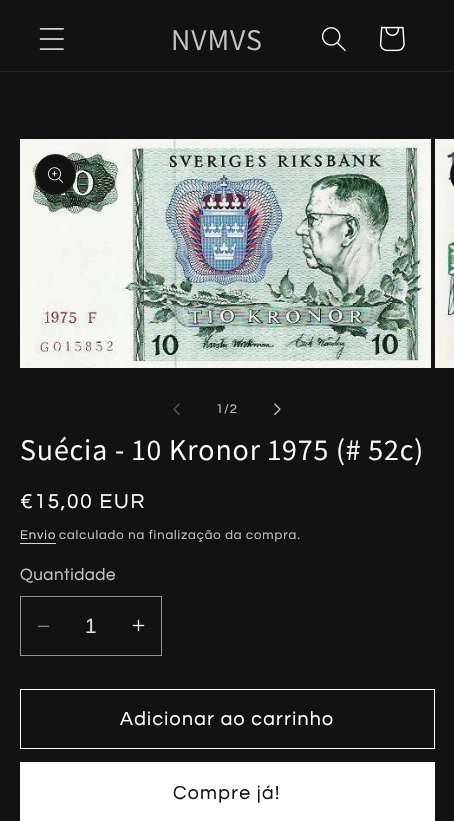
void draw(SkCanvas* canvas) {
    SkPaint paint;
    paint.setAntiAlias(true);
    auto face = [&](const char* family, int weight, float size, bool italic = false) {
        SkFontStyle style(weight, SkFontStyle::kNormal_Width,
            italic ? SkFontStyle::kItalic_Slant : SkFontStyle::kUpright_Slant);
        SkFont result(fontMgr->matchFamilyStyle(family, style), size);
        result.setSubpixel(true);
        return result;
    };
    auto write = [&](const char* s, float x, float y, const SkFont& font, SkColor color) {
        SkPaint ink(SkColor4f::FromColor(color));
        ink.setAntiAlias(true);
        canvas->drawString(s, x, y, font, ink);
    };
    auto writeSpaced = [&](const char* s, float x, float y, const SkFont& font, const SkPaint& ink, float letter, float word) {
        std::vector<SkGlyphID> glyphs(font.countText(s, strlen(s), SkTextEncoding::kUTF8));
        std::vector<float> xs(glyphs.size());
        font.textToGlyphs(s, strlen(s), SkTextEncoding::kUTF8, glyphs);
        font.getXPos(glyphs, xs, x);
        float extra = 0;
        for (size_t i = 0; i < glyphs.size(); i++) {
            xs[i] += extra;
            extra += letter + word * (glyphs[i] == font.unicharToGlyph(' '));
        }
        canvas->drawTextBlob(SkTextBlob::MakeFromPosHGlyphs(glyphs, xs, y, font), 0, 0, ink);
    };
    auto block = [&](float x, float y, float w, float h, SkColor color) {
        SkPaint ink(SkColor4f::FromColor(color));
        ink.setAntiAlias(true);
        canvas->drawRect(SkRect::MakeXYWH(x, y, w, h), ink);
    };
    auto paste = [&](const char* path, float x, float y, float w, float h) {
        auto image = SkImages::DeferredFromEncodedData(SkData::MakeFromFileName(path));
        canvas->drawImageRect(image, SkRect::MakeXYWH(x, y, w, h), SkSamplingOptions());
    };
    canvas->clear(SkColorSetRGB(18, 18, 18));
    block(0, 71, 454, 1, SkColorSetRGB(37, 37, 37));
    paste("pic1.png", 39, 28, 25, 22);
    auto kFont1 = face("Assistant", 400, 30);
    paint.setColor(SkColorSetRGB(196, 196, 196));
    writeSpaced("NVMVS", 171, 50, kFont1, paint, 0.9f, 0);
    paste("pic2.png", 321, 27, 25, 25);
    paste("pic3.png", 379, 26, 26, 26);
    paste("pic4.png", 20, 139, 411, 229);
    paint.setColor(SkColorSetRGB(18, 18, 18));
    canvas->drawCircle(55.5f, 174.5f, 20.5f, paint);
    paint.setStyle(SkPaint::kStroke_Style);
    paint.setStrokeWidth(1);
    paint.setColor(SkColorSetARGB(26, 255, 255, 255));
    canvas->drawCircle(55.5f, 174.5f, 20, paint);
    paste("pic5.png", 48, 167, 15, 16);
    paste("pic6.png", 435, 139, 19, 229);
    paint.setStyle(SkPaint::kFill_Style);
    paint.setColor(SkColorSetRGB(18, 18, 18));
    canvas->drawPath(SkPathBuilder().moveTo(470.5f, 154).lineTo(454, 154).lineTo(454, 195).lineTo(470.5f, 195).cubicTo(459, 195, 450, 186, 450, 174.5f).cubicTo(450, 163, 459, 154, 470.5f, 154).close().detach(), paint);
    paint.setStyle(SkPaint::kStroke_Style);
    paint.setColor(SkColorSetARGB(26, 255, 255, 255));
    canvas->drawRoundRect(SkRect::MakeXYWH(450.5f, 154.5f, 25, 40), 20, 20, paint);
    paste("pic7.png", 173, 403, 7, 12);
    auto kFont2 = face("Questrial", 400, 13);
    paint.setStyle(SkPaint::kFill_Style);
    paint.setColor(SkColorSetRGB(196, 196, 196));
    writeSpaced("1/2", 216, 413, kFont2, paint, 0.9f, 0);
    paste("pic8.png", 274, 403, 7, 12);
    paint.setColor(SK_ColorWHITE);
    writeSpaced("Suécia - 10 Kronor 1975 (# 52c)", 20, 460, kFont1, paint, 0.9f, 0);
    auto kFont3 = face("Questrial", 400, 20.75f);
    writeSpaced("€15,00 EUR", 20, 508, kFont3, paint, 1.75f, 0);
    paint.setColor(SkColorSetRGB(219, 219, 219));
    writeSpaced("Envio", 20, 539, kFont2, paint, 0.9f, 0);
    block(20, 543, 36, 1, SkColorSetRGB(219, 219, 219));
    paint.setColor(SkColorSetRGB(196, 196, 196));
    writeSpaced("calculado na finalização da compra.", 59, 539, kFont2, paint, 0.9f, 0);
    auto kFont4 = face("Questrial", 400, 17);
    writeSpaced("Quantidade", 20, 580, kFont4, paint, 0.5f, 0);
    paste("pic9.png", 37, 625, 13, 2);
    paste("pic10.png", 132, 619, 13, 13);
    paint.setStyle(SkPaint::kStroke_Style);
    paint.setColor(SkColorSetRGB(148, 148, 148));
    canvas->drawRect(SkRect::MakeXYWH(20.5f, 596.5f, 141, 59), paint);
    auto kFont5 = face("Liberation Sans", 400, 20.75f);
    write("1", 85, 633, kFont5, SkColorSetRGB(219, 219, 219));
    paint.setColor(SK_ColorWHITE);
    canvas->drawRect(SkRect::MakeXYWH(20.5f, 689.5f, 414, 59), paint);
    auto kFont6 = face("Questrial", 400, 19.5f);
    paint.setStyle(SkPaint::kFill_Style);
    writeSpaced("Adicionar ao carrinho", 120, 725, kFont6, paint, 1.3f, 0);
    block(20, 762, 415, 59, SK_ColorWHITE);
    paint.setColor(SkColorSetRGB(18, 18, 18));
    writeSpaced("Compre já!", 173, 799, kFont6, paint, 1.3f, 0);
}
